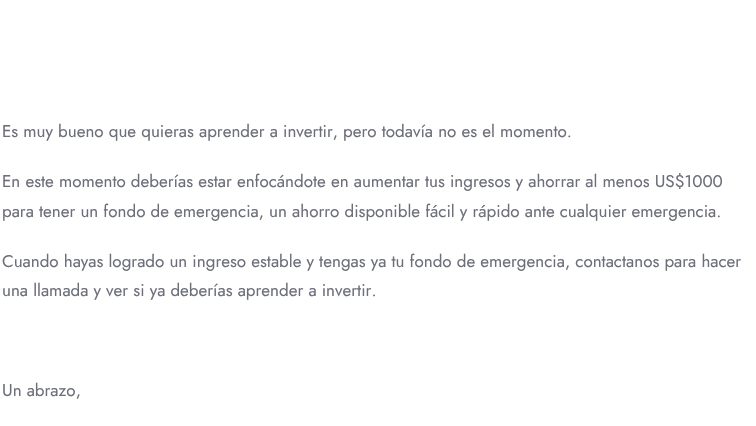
void draw(SkCanvas* canvas) {
    SkPaint paint;
    paint.setAntiAlias(true);
    auto face = [&](const char* family, int weight, float size, bool italic = false) {
        SkFontStyle style(weight, SkFontStyle::kNormal_Width,
            italic ? SkFontStyle::kItalic_Slant : SkFontStyle::kUpright_Slant);
        SkFont result(fontMgr->matchFamilyStyle(family, style), size);
        result.setSubpixel(true);
        return result;
    };
    auto write = [&](const char* s, float x, float y, const SkFont& font, SkColor color) {
        SkPaint ink(SkColor4f::FromColor(color));
        ink.setAntiAlias(true);
        canvas->drawString(s, x, y, font, ink);
    };
    canvas->clear(SK_ColorWHITE);
    auto kFont1 = face("Jost", 400, 17);
    write("Es muy bueno que quieras aprender a invertir, pero todavía no es el momento.", 2, 137, kFont1, SkColorSetRGB(108, 110, 122));
    write("En este momento deberías estar enfocándote en aumentar tus ingresos y ahorrar al menos US$1000", 2, 187, kFont1, SkColorSetRGB(108, 110, 122));
    write("para tener un fondo de emergencia, un ahorro disponible fácil y rápido ante cualquier emergencia.", 2, 217, kFont1, SkColorSetRGB(108, 110, 122));
    write("Cuando hayas logrado un ingreso estable y tengas ya tu fondo de emergencia, contactanos para hacer", 2, 267, kFont1, SkColorSetRGB(108, 110, 122));
    write("una llamada y ver si ya deberías aprender a invertir.", 2, 296, kFont1, SkColorSetRGB(108, 110, 122));
    write("Un abrazo,", 2, 396, kFont1, SkColorSetRGB(108, 110, 122));
}
